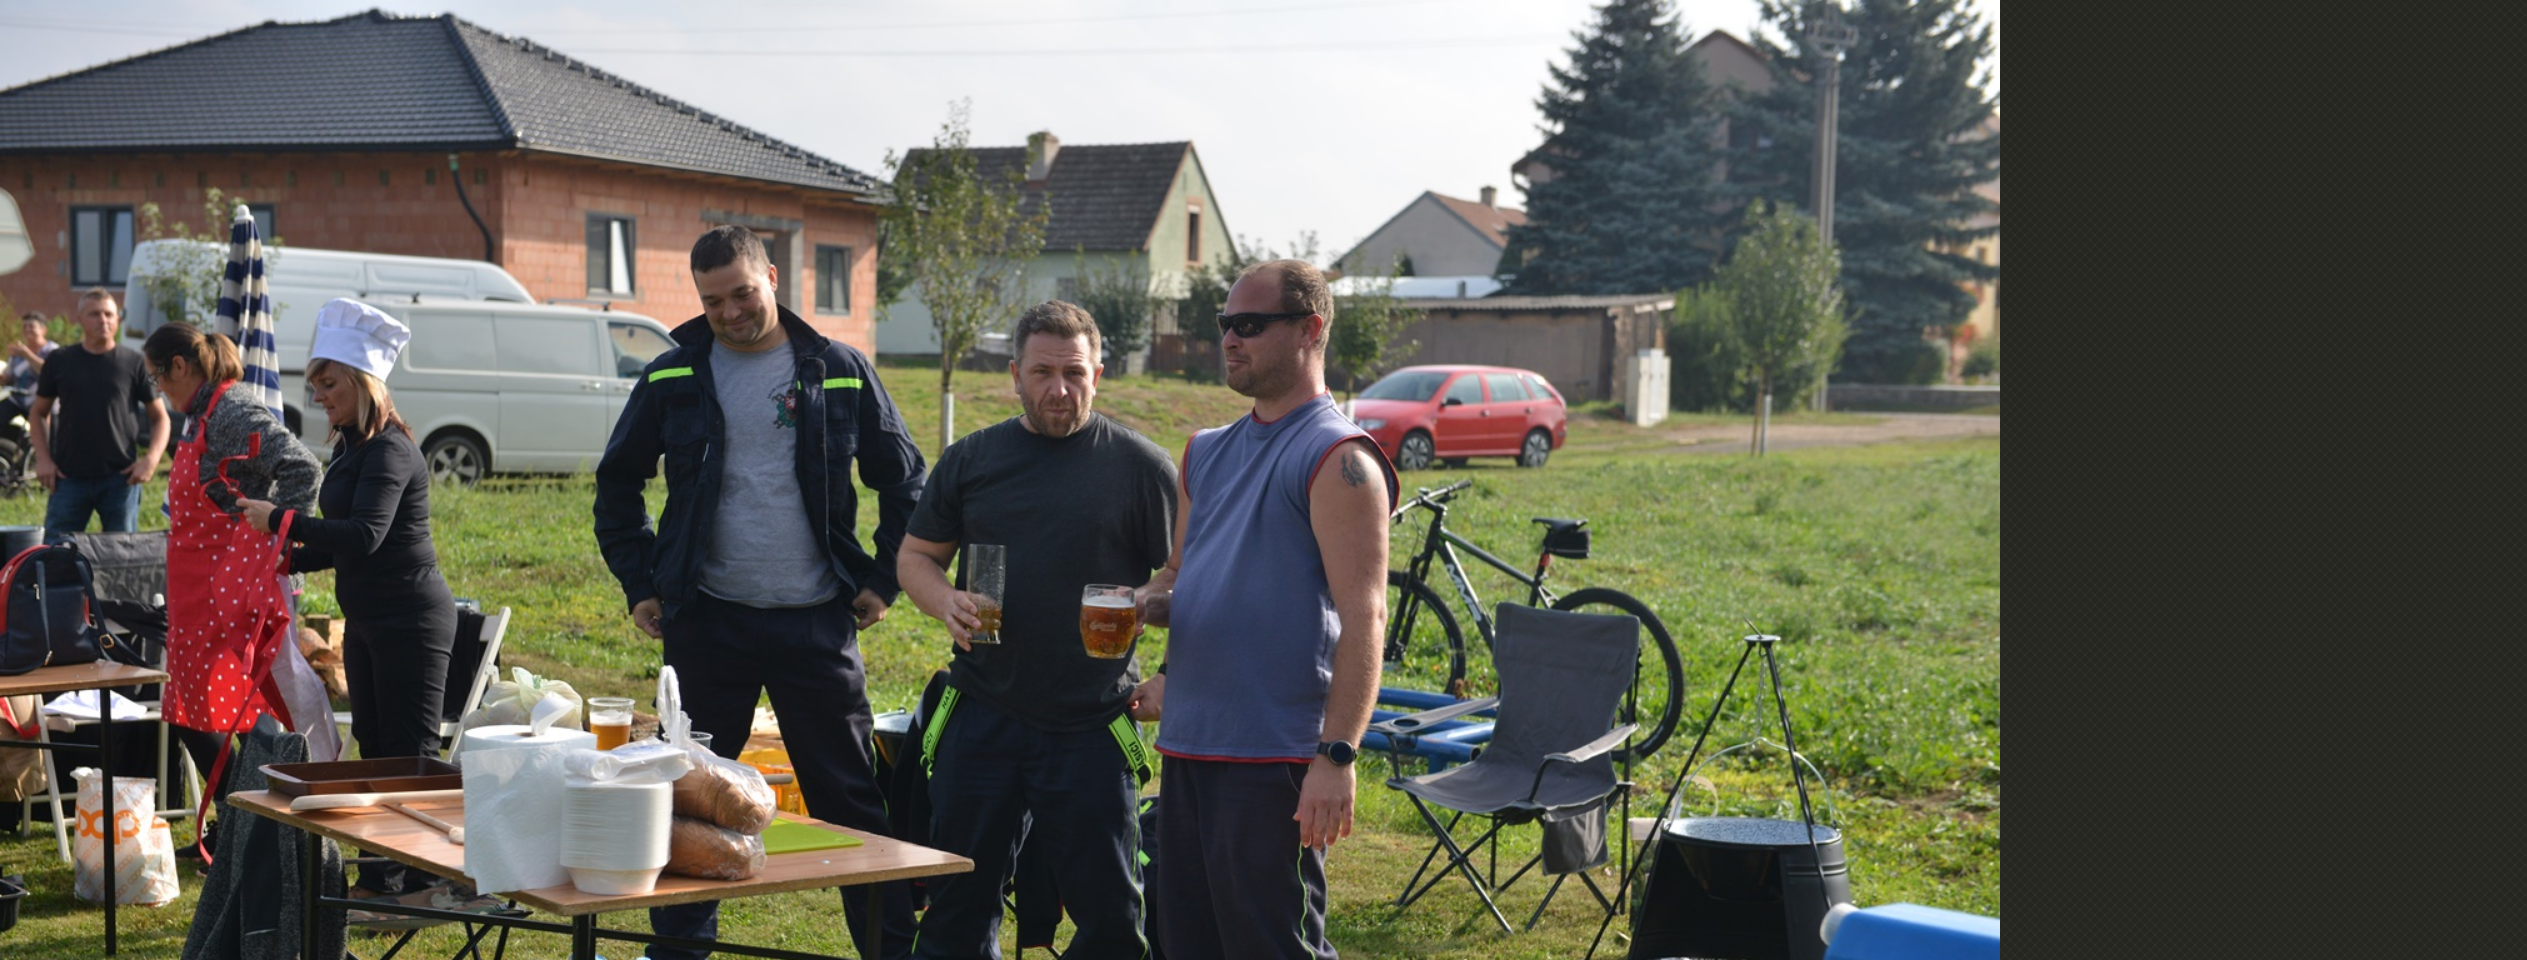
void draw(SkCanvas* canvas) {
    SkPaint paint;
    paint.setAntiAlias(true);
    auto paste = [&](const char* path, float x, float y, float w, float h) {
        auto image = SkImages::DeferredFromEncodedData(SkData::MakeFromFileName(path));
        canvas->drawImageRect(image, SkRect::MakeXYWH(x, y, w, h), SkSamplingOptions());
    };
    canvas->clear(SkColorSetRGB(37, 37, 31));
    paste("pic1.png", 2000, 0, 527, 960);
    paste("pic2.png", 0, 0, 2000, 960);
}
